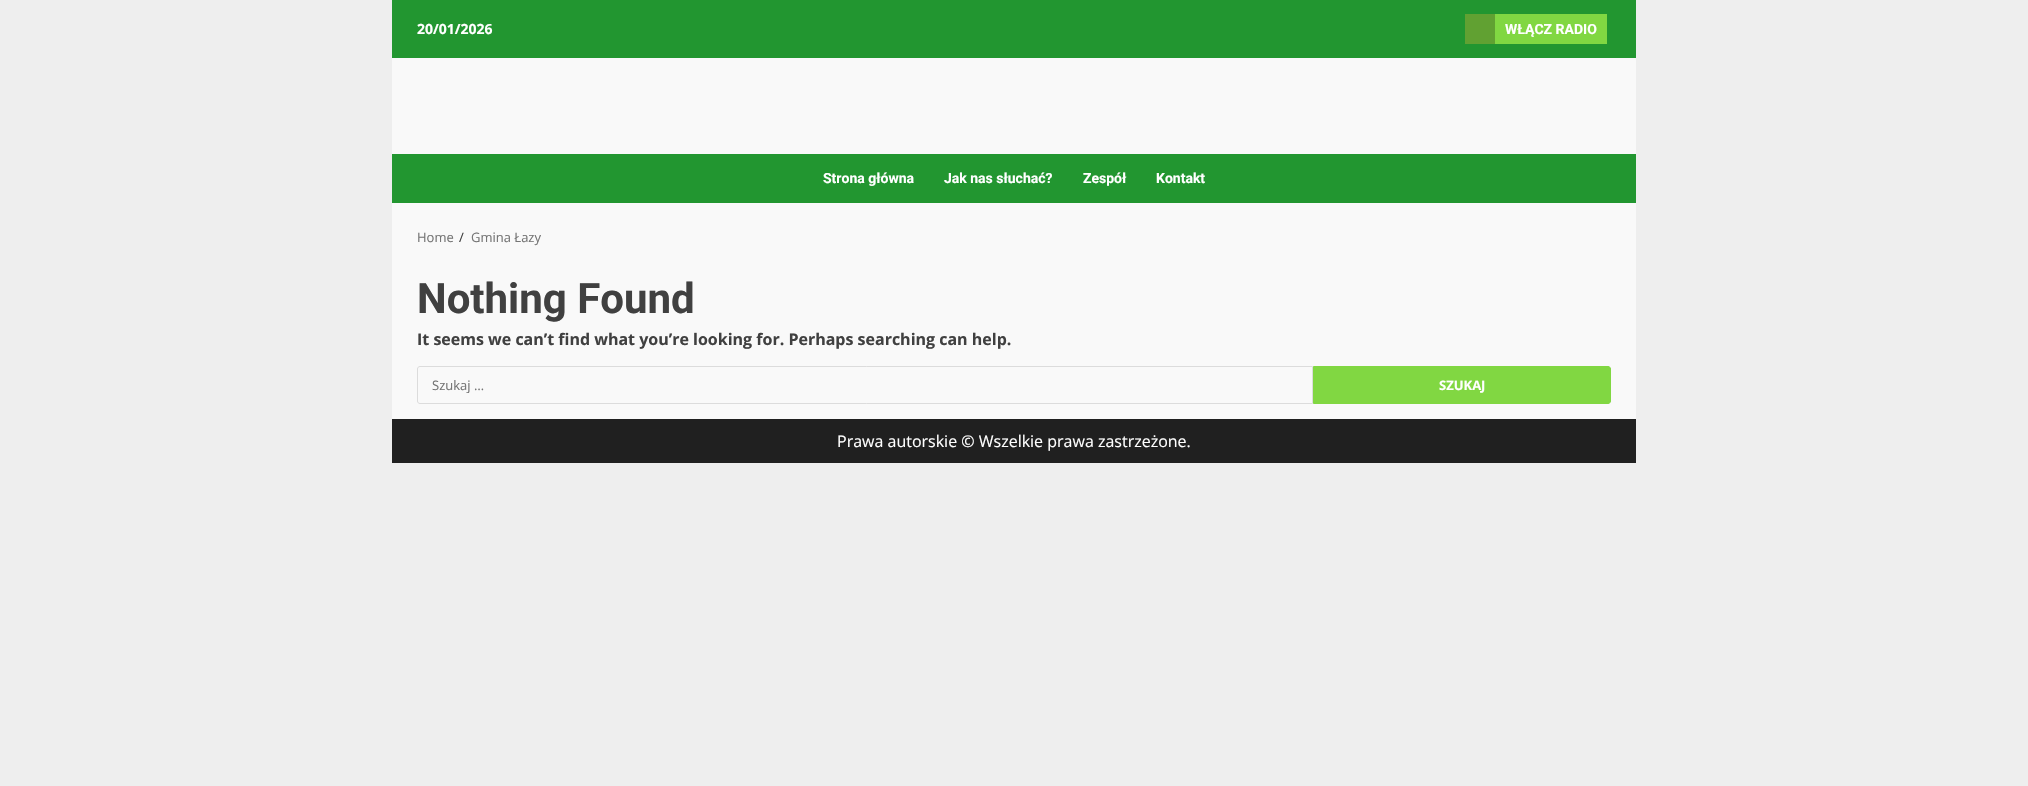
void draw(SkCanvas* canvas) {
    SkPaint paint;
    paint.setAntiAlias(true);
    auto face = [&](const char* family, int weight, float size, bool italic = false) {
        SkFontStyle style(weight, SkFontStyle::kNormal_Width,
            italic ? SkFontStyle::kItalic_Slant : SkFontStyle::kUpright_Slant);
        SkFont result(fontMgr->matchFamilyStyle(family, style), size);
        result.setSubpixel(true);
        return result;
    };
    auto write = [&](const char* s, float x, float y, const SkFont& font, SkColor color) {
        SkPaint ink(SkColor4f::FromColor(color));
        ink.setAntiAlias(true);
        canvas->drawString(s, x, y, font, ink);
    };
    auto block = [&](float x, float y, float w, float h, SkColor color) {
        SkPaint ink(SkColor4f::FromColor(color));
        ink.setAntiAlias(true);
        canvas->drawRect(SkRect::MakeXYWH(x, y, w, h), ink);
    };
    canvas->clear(SkColorSetRGB(238, 238, 238));
    block(392, 58, 1244, 361, SkColorSetRGB(249, 249, 249));
    block(392, 0, 1244, 58, SkColorSetRGB(34, 150, 48));
    auto kFont1 = face("Open Sans", 700, 14);
    write("20/01/2026", 417, 34, kFont1, SK_ColorWHITE);
    block(1495, 14, 112, 30, SkColorSetRGB(129, 215, 66));
    block(1465, 14, 30, 30, SkColorSetRGB(97, 161, 50));
    auto kFont2 = face("Roboto", 700, 14);
    write("WŁĄCZ RADIO", 1505, 34, kFont2, SK_ColorWHITE);
    block(392, 154, 1244, 49, SkColorSetRGB(34, 150, 48));
    write("Strona główna", 823, 183, kFont2, SK_ColorWHITE);
    write("Jak nas słuchać?", 944, 183, kFont2, SK_ColorWHITE);
    write("Zespół", 1083, 183, kFont2, SK_ColorWHITE);
    write("Kontakt", 1156, 183, kFont2, SK_ColorWHITE);
    auto kFont3 = face("Open Sans", 400, 13);
    write("Home", 417, 242, kFont3, SkColorSetRGB(117, 117, 117));
    write("/", 459, 242, kFont3, SkColorSetRGB(64, 64, 64));
    write("Gmina Łazy", 471, 242, kFont3, SkColorSetRGB(117, 117, 117));
    auto kFont4 = face("Roboto", 700, 42);
    write("Nothing Found", 417, 313, kFont4, SkColorSetRGB(64, 64, 64));
    auto kFont5 = face("Open Sans", 700, 16);
    write("It seems we can’t find what you’re looking for. Perhaps searching can help.", 417, 345, kFont5, SkColorSetRGB(64, 64, 64));
    paint.setStyle(SkPaint::kStroke_Style);
    paint.setStrokeWidth(1);
    paint.setColor(SkColorSetRGB(220, 220, 220));
    canvas->drawPath(SkPathBuilder().moveTo(420, 366.5f).lineTo(1312.5f, 366.5f).lineTo(1312.5f, 403.5f).lineTo(420, 403.5f).cubicTo(418.5f, 403.5f, 417.5f, 402.5f, 417.5f, 401).lineTo(417.5f, 369).cubicTo(417.5f, 367.5f, 418.5f, 366.5f, 420, 366.5f).close().detach(), paint);
    write("Szukaj …", 432, 390, kFont3, SkColorSetRGB(117, 117, 117));
    paint.setStyle(SkPaint::kFill_Style);
    paint.setColor(SkColorSetRGB(129, 215, 66));
    canvas->drawPath(SkPathBuilder().moveTo(1313.5f, 366.5f).lineTo(1608, 366.5f).cubicTo(1609.5f, 366.5f, 1610.5f, 367.5f, 1610.5f, 369).lineTo(1610.5f, 401).cubicTo(1610.5f, 402.5f, 1609.5f, 403.5f, 1608, 403.5f).lineTo(1313.5f, 403.5f).close().detach(), paint);
    paint.setStyle(SkPaint::kStroke_Style);
    canvas->drawPath(SkPathBuilder().moveTo(1313.5f, 366.5f).lineTo(1608, 366.5f).cubicTo(1609.5f, 366.5f, 1610.5f, 367.5f, 1610.5f, 369).lineTo(1610.5f, 401).cubicTo(1610.5f, 402.5f, 1609.5f, 403.5f, 1608, 403.5f).lineTo(1313.5f, 403.5f).close().detach(), paint);
    auto kFont6 = face("Open Sans", 700, 13);
    write("SZUKAJ", 1439, 390, kFont6, SK_ColorWHITE);
    block(392, 419, 1244, 44, SkColorSetRGB(32, 32, 32));
    auto kFont7 = face("Open Sans", 400, 16);
    write("Prawa autorskie © Wszelkie prawa zastrzeżone.", 837, 447, kFont7, SK_ColorWHITE);
}
